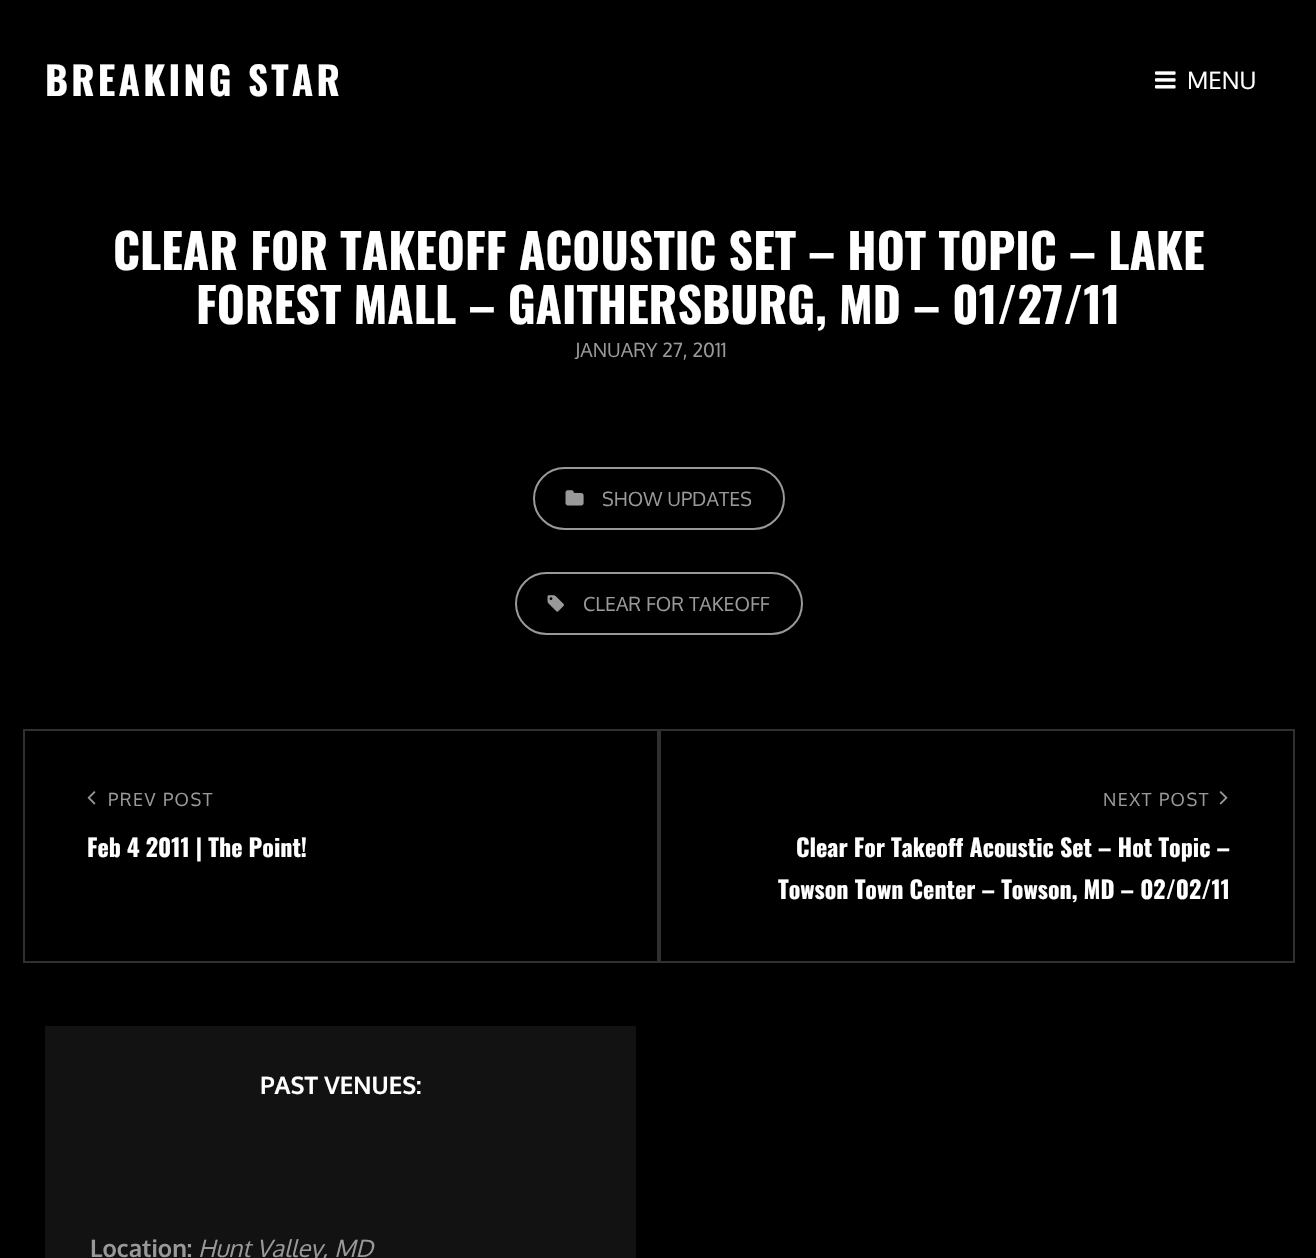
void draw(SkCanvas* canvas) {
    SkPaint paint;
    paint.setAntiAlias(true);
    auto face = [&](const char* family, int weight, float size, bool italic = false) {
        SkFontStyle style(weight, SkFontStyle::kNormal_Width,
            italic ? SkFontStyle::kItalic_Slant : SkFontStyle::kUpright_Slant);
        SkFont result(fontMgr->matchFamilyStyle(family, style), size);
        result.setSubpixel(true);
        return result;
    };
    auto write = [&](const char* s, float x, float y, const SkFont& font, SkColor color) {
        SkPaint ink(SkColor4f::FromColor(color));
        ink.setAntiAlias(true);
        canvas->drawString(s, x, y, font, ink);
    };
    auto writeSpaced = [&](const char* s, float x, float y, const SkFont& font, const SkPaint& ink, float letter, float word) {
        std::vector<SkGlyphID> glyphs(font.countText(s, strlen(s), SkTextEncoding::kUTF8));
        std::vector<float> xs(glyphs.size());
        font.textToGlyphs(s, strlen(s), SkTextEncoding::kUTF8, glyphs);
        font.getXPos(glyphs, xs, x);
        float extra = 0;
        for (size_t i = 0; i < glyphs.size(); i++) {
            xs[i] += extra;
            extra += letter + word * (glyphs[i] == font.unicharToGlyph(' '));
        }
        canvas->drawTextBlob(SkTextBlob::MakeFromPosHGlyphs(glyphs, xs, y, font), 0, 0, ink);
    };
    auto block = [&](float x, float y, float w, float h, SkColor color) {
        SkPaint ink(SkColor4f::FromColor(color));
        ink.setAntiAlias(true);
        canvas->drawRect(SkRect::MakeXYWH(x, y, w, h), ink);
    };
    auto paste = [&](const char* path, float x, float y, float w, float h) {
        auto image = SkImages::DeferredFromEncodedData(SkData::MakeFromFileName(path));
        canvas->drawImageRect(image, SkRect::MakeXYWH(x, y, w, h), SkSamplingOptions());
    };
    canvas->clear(SK_ColorBLACK);
    auto kFont1 = face("Oswald", 700, 39);
    paint.setColor(SK_ColorWHITE);
    writeSpaced("BREAKING STAR", 45, 96, kFont1, paint, 3.25f, 0);
    paste("pic1.png", 1155, 71, 21, 18);
    auto kFont2 = face("Oxygen", 400, 24);
    write("MENU", 1187, 89, kFont2, SK_ColorWHITE);
    auto kFont3 = face("Oswald", 700, 48);
    write("CLEAR FOR TAKEOFF ACOUSTIC SET – HOT TOPIC – LAKE", 113, 270, kFont3, SK_ColorWHITE);
    write("FOREST MALL – GAITHERSBURG, MD – 01/27/11", 196, 324, kFont3, SK_ColorWHITE);
    auto kFont4 = face("Oxygen", 400, 19.5f);
    write("JANUARY 27, 2011", 575, 357, kFont4, SkColorSetRGB(153, 153, 153));
    paint.setStyle(SkPaint::kStroke_Style);
    paint.setStrokeWidth(2);
    paint.setColor(SkColorSetRGB(153, 153, 153));
    canvas->drawRoundRect(SkRect::MakeXYWH(534, 468, 250, 61), 30.5f, 30.5f, paint);
    paste("pic2.png", 565, 490, 19, 16);
    write("SHOW UPDATES", 602, 506, kFont4, SkColorSetRGB(153, 153, 153));
    canvas->drawRoundRect(SkRect::MakeXYWH(516, 573, 286, 61), 30.5f, 30.5f, paint);
    paste("pic3.png", 547, 595, 17, 17);
    write("CLEAR FOR TAKEOFF", 583, 611, kFont4, SkColorSetRGB(153, 153, 153));
    paint.setColor(SkColorSetRGB(48, 48, 48));
    canvas->drawRect(SkRect::MakeXYWH(24, 730, 634, 232), paint);
    paste("pic4.png", 87, 791, 9, 14);
    auto kFont5 = face("Oxygen", 400, 18);
    paint.setStyle(SkPaint::kFill_Style);
    paint.setColor(SkColorSetRGB(153, 153, 153));
    writeSpaced("PREV POST", 108, 806, kFont5, paint, 1.5f, 0);
    auto kFont6 = face("Oswald", 700, 24);
    write("Feb 4 2011 | The Point!", 87, 857, kFont6, SK_ColorWHITE);
    paint.setStyle(SkPaint::kStroke_Style);
    paint.setColor(SkColorSetRGB(48, 48, 48));
    canvas->drawRect(SkRect::MakeXYWH(660, 730, 634, 232), paint);
    paint.setStyle(SkPaint::kFill_Style);
    paint.setColor(SkColorSetRGB(153, 153, 153));
    writeSpaced("NEXT POST", 1103, 806, kFont5, paint, 1.5f, 0);
    paste("pic5.png", 1219, 791, 9, 14);
    write("Clear For Takeoff Acoustic Set – Hot Topic –", 796, 857, kFont6, SK_ColorWHITE);
    write("Towson Town Center – Towson, MD – 02/02/11", 778, 899, kFont6, SK_ColorWHITE);
    block(45, 1026, 591, 232, SkColorSetRGB(18, 18, 18));
    auto kFont7 = face("Oxygen", 700, 24);
    write("PAST VENUES:", 260, 1094, kFont7, SK_ColorWHITE);
    write("Location:", 90, 1257, kFont7, SkColorSetRGB(153, 153, 153));
    auto kFont8 = face("Oxygen", 400, 24, true);
    write("Hunt Valley, MD", 198, 1257, kFont8, SkColorSetRGB(153, 153, 153));
}
